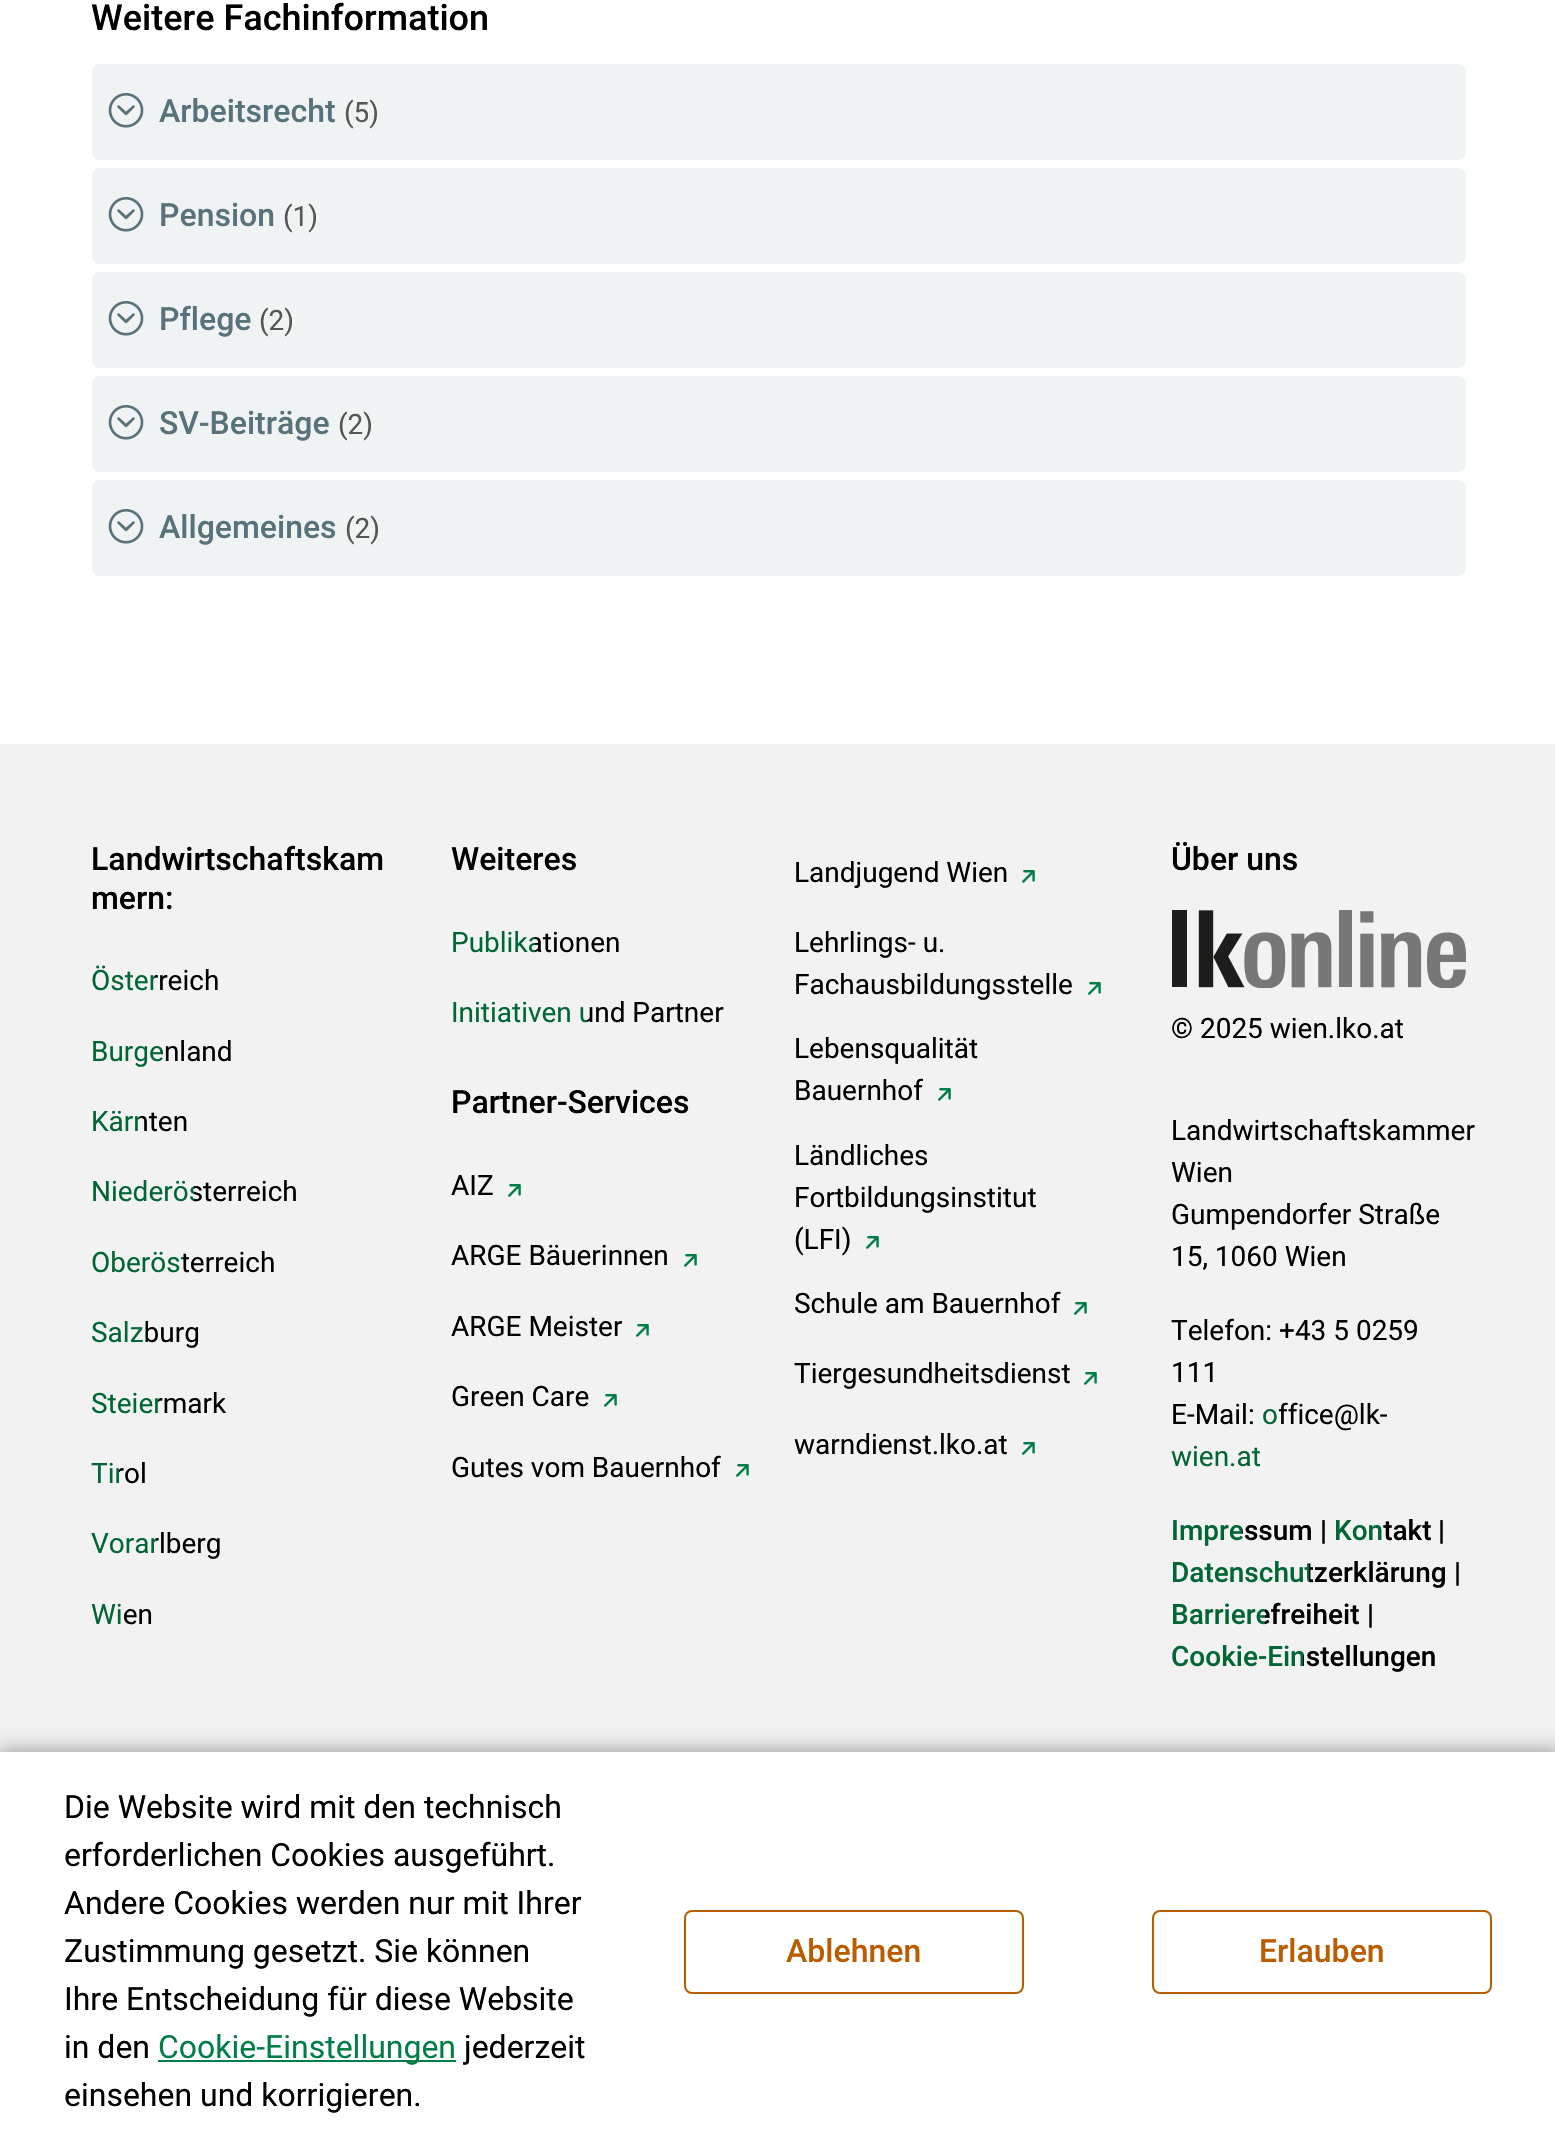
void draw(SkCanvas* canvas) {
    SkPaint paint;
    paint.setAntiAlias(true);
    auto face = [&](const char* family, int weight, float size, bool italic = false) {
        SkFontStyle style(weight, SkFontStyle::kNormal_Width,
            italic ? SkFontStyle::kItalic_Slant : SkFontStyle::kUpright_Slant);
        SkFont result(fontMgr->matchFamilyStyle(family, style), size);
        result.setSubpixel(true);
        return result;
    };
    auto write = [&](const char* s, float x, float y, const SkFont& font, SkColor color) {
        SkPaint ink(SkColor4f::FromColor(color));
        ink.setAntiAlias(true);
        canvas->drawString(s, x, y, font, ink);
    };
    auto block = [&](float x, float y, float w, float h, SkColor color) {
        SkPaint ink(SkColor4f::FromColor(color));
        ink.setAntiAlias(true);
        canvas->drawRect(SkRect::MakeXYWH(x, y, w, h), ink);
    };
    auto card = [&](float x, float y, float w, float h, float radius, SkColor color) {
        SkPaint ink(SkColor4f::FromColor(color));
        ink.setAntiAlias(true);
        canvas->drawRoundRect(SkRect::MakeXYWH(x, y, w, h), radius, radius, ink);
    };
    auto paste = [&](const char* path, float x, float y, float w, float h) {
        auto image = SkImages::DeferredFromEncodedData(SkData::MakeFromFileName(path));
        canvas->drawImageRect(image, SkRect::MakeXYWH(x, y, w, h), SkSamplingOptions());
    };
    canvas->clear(SK_ColorWHITE);
    auto kFont1 = face("Roboto", 500, 36);
    write("Weitere Fachinformation", 91, 30, kFont1, SK_ColorBLACK);
    card(92, 64, 1374, 96, 8, SkColorSetRGB(240, 243, 244));
    paste("pic1.png", 108, 93, 36, 35);
    auto kFont2 = face("Roboto", 500, 32);
    write("Arbeitsrecht", 159, 122, kFont2, SkColorSetRGB(87, 114, 123));
    auto kFont3 = face("Roboto", 400, 28);
    write("(5)", 344, 122, kFont3, SkColorSetRGB(85, 85, 85));
    card(92, 168, 1374, 96, 8, SkColorSetRGB(240, 243, 244));
    paste("pic1.png", 108, 197, 36, 35);
    write("Pension", 159, 226, kFont2, SkColorSetRGB(87, 114, 123));
    write("(1)", 283, 226, kFont3, SkColorSetRGB(85, 85, 85));
    card(92, 272, 1374, 96, 8, SkColorSetRGB(240, 243, 244));
    paste("pic1.png", 108, 301, 36, 35);
    write("Pflege", 159, 330, kFont2, SkColorSetRGB(87, 114, 123));
    write("(2)", 259, 330, kFont3, SkColorSetRGB(85, 85, 85));
    card(92, 376, 1374, 96, 8, SkColorSetRGB(240, 243, 244));
    paste("pic1.png", 108, 405, 36, 35);
    write("SV-Beiträge", 159, 434, kFont2, SkColorSetRGB(87, 114, 123));
    write("(2)", 338, 434, kFont3, SkColorSetRGB(85, 85, 85));
    card(92, 480, 1374, 96, 8, SkColorSetRGB(240, 243, 244));
    paste("pic1.png", 108, 509, 36, 35);
    write("Allgemeines", 159, 538, kFont2, SkColorSetRGB(87, 114, 123));
    write("(2)", 345, 538, kFont3, SkColorSetRGB(85, 85, 85));
    block(0, 744, 1555, 1008, SkColorSetRGB(242, 242, 242));
    write("Landwirtschaftskam", 91, 870, kFont2, SK_ColorBLACK);
    write("mern:", 91, 909, kFont2, SK_ColorBLACK);
    {
        const SkColor colors[] = {SkColorSetRGB(0, 102, 52), SK_ColorBLACK};
        const float stops[] = {0.5f, 0.5f};
        const SkPoint ends[] = {{91, 984}, {219, 984}};
        paint.setShader(SkGradientShader::MakeLinear(ends, colors, stops, 2, SkTileMode::kClamp));
        paint.setAlpha(255);
    }
    canvas->drawString("Österreich", 91, 990, kFont3, paint);
    {
        const SkColor colors[] = {SkColorSetRGB(0, 102, 52), SK_ColorBLACK};
        const float stops[] = {0.5f, 0.5f};
        const SkPoint ends[] = {{91, 1055}, {233, 1055}};
        paint.setShader(SkGradientShader::MakeLinear(ends, colors, stops, 2, SkTileMode::kClamp));
        paint.setAlpha(255);
    }
    canvas->drawString("Burgenland", 91, 1061, kFont3, paint);
    {
        const SkColor colors[] = {SkColorSetRGB(0, 102, 52), SK_ColorBLACK};
        const float stops[] = {0.5f, 0.5f};
        const SkPoint ends[] = {{91, 1125}, {188, 1125}};
        paint.setShader(SkGradientShader::MakeLinear(ends, colors, stops, 2, SkTileMode::kClamp));
        paint.setAlpha(255);
    }
    canvas->drawString("Kärnten", 91, 1131, kFont3, paint);
    {
        const SkColor colors[] = {SkColorSetRGB(0, 102, 52), SK_ColorBLACK};
        const float stops[] = {0.5f, 0.5f};
        const SkPoint ends[] = {{91, 1195}, {298, 1195}};
        paint.setShader(SkGradientShader::MakeLinear(ends, colors, stops, 2, SkTileMode::kClamp));
        paint.setAlpha(255);
    }
    canvas->drawString("Niederösterreich", 91, 1201, kFont3, paint);
    {
        const SkColor colors[] = {SkColorSetRGB(0, 102, 52), SK_ColorBLACK};
        const float stops[] = {0.5f, 0.5f};
        const SkPoint ends[] = {{91, 1266}, {275, 1266}};
        paint.setShader(SkGradientShader::MakeLinear(ends, colors, stops, 2, SkTileMode::kClamp));
        paint.setAlpha(255);
    }
    canvas->drawString("Oberösterreich", 91, 1272, kFont3, paint);
    {
        const SkColor colors[] = {SkColorSetRGB(0, 102, 52), SK_ColorBLACK};
        const float stops[] = {0.5f, 0.5f};
        const SkPoint ends[] = {{91, 1336}, {200, 1336}};
        paint.setShader(SkGradientShader::MakeLinear(ends, colors, stops, 2, SkTileMode::kClamp));
        paint.setAlpha(255);
    }
    canvas->drawString("Salzburg", 91, 1342, kFont3, paint);
    {
        const SkColor colors[] = {SkColorSetRGB(0, 102, 52), SK_ColorBLACK};
        const float stops[] = {0.5f, 0.5f};
        const SkPoint ends[] = {{91, 1407}, {226, 1407}};
        paint.setShader(SkGradientShader::MakeLinear(ends, colors, stops, 2, SkTileMode::kClamp));
        paint.setAlpha(255);
    }
    canvas->drawString("Steiermark", 91, 1413, kFont3, paint);
    {
        const SkColor colors[] = {SkColorSetRGB(0, 102, 52), SK_ColorBLACK};
        const float stops[] = {0.5f, 0.5f};
        const SkPoint ends[] = {{91, 1477}, {147, 1477}};
        paint.setShader(SkGradientShader::MakeLinear(ends, colors, stops, 2, SkTileMode::kClamp));
        paint.setAlpha(255);
    }
    canvas->drawString("Tirol", 91, 1483, kFont3, paint);
    {
        const SkColor colors[] = {SkColorSetRGB(0, 102, 52), SK_ColorBLACK};
        const float stops[] = {0.5f, 0.5f};
        const SkPoint ends[] = {{91, 1547}, {222, 1547}};
        paint.setShader(SkGradientShader::MakeLinear(ends, colors, stops, 2, SkTileMode::kClamp));
        paint.setAlpha(255);
    }
    canvas->drawString("Vorarlberg", 91, 1553, kFont3, paint);
    {
        const SkColor colors[] = {SkColorSetRGB(0, 102, 52), SK_ColorBLACK};
        const float stops[] = {0.5f, 0.5f};
        const SkPoint ends[] = {{91, 1618}, {153, 1618}};
        paint.setShader(SkGradientShader::MakeLinear(ends, colors, stops, 2, SkTileMode::kClamp));
        paint.setAlpha(255);
    }
    canvas->drawString("Wien", 91, 1624, kFont3, paint);
    write("Weiteres", 451, 870, kFont2, SK_ColorBLACK);
    write("Landjugend Wien", 794, 882, kFont3, SK_ColorBLACK);
    paste("pic2.png", 1022, 870, 13, 13);
    write("Lehrlings- u.", 794, 952, kFont3, SK_ColorBLACK);
    write("Fachausbildungsstelle", 794, 994, kFont3, SK_ColorBLACK);
    paste("pic2.png", 1088, 982, 13, 13);
    write("Lebensqualität", 794, 1058, kFont3, SK_ColorBLACK);
    write("Bauernhof", 794, 1100, kFont3, SK_ColorBLACK);
    paste("pic2.png", 938, 1088, 13, 13);
    write("AIZ", 451, 1195, kFont3, SK_ColorBLACK);
    paste("pic2.png", 508, 1184, 13, 13);
    write("Ländliches", 794, 1165, kFont3, SK_ColorBLACK);
    write("Fortbildungsinstitut", 794, 1207, kFont3, SK_ColorBLACK);
    write("(LFI)", 794, 1249, kFont3, SK_ColorBLACK);
    paste("pic2.png", 866, 1236, 13, 13);
    write("ARGE Bäuerinnen", 451, 1265, kFont3, SK_ColorBLACK);
    paste("pic2.png", 684, 1254, 13, 13);
    write("Schule am Bauernhof", 794, 1313, kFont3, SK_ColorBLACK);
    paste("pic2.png", 1074, 1302, 13, 13);
    write("ARGE Meister", 451, 1336, kFont3, SK_ColorBLACK);
    paste("pic2.png", 636, 1324, 13, 13);
    write("Tiergesundheitsdienst", 794, 1383, kFont3, SK_ColorBLACK);
    paste("pic2.png", 1084, 1372, 13, 13);
    write("Green Care", 451, 1406, kFont3, SK_ColorBLACK);
    paste("pic2.png", 604, 1394, 13, 13);
    write("warndienst.lko.at", 794, 1454, kFont3, SK_ColorBLACK);
    paste("pic2.png", 1022, 1442, 13, 13);
    write("Gutes vom Bauernhof", 451, 1477, kFont3, SK_ColorBLACK);
    paste("pic2.png", 736, 1464, 13, 13);
    {
        const SkColor colors[] = {SkColorSetRGB(0, 102, 52), SK_ColorBLACK};
        const float stops[] = {0.5f, 0.5f};
        const SkPoint ends[] = {{451, 946}, {620, 946}};
        paint.setShader(SkGradientShader::MakeLinear(ends, colors, stops, 2, SkTileMode::kClamp));
        paint.setAlpha(255);
    }
    canvas->drawString("Publikationen", 451, 952, kFont3, paint);
    {
        const SkColor colors[] = {SkColorSetRGB(0, 102, 52), SK_ColorBLACK};
        const float stops[] = {0.5f, 0.5f};
        const SkPoint ends[] = {{451, 1016}, {724, 1016}};
        paint.setShader(SkGradientShader::MakeLinear(ends, colors, stops, 2, SkTileMode::kClamp));
        paint.setAlpha(255);
    }
    canvas->drawString("Initiativen und Partner", 451, 1022, kFont3, paint);
    write("Partner-Services", 451, 1113, kFont2, SK_ColorBLACK);
    write("Über uns", 1171, 870, kFont2, SK_ColorBLACK);
    paste("pic3.png", 1172, 910, 294, 78);
    write("© 2025 wien.lko.at", 1171, 1038, kFont3, SK_ColorBLACK);
    write("Landwirtschaftskammer", 1171, 1140, kFont3, SK_ColorBLACK);
    write("Wien", 1171, 1182, kFont3, SK_ColorBLACK);
    write("Gumpendorfer Straße", 1171, 1224, kFont3, SK_ColorBLACK);
    write("15, 1060 Wien", 1171, 1266, kFont3, SK_ColorBLACK);
    write("Telefon: +43 5 0259", 1171, 1340, kFont3, SK_ColorBLACK);
    write("111", 1171, 1382, kFont3, SK_ColorBLACK);
    write("E-Mail:", 1171, 1424, kFont3, SK_ColorBLACK);
    {
        const SkColor colors[] = {SkColorSetRGB(0, 102, 52), SK_ColorBLACK};
        const float stops[] = {0.5f, 0.5f};
        const SkPoint ends[] = {{1171, 1435}, {1387, 1435}};
        paint.setShader(SkGradientShader::MakeLinear(ends, colors, stops, 2, SkTileMode::kClamp));
        paint.setAlpha(255);
    }
    canvas->drawString("office@lk-", 1262, 1424, kFont3, paint);
    canvas->drawString("wien.at", 1171, 1466, kFont3, paint);
    auto kFont4 = face("Roboto", 500, 28);
    {
        const SkColor colors[] = {SkColorSetRGB(0, 102, 52), SK_ColorBLACK};
        const float stops[] = {0.5f, 0.5f};
        const SkPoint ends[] = {{1171, 1530}, {1313, 1530}};
        paint.setShader(SkGradientShader::MakeLinear(ends, colors, stops, 2, SkTileMode::kClamp));
        paint.setAlpha(255);
    }
    canvas->drawString("Impressum", 1171, 1540, kFont4, paint);
    write("|", 1320, 1540, kFont4, SK_ColorBLACK);
    {
        const SkColor colors[] = {SkColorSetRGB(0, 102, 52), SK_ColorBLACK};
        const float stops[] = {0.5f, 0.5f};
        const SkPoint ends[] = {{1334, 1530}, {1431, 1530}};
        paint.setShader(SkGradientShader::MakeLinear(ends, colors, stops, 2, SkTileMode::kClamp));
        paint.setAlpha(255);
    }
    canvas->drawString("Kontakt", 1334, 1540, kFont4, paint);
    write("|", 1438, 1540, kFont4, SK_ColorBLACK);
    {
        const SkColor colors[] = {SkColorSetRGB(0, 102, 52), SK_ColorBLACK};
        const float stops[] = {0.5f, 0.5f};
        const SkPoint ends[] = {{1171, 1572}, {1447, 1572}};
        paint.setShader(SkGradientShader::MakeLinear(ends, colors, stops, 2, SkTileMode::kClamp));
        paint.setAlpha(255);
    }
    canvas->drawString("Datenschutzerklärung", 1171, 1582, kFont4, paint);
    write("|", 1454, 1582, kFont4, SK_ColorBLACK);
    {
        const SkColor colors[] = {SkColorSetRGB(0, 102, 52), SK_ColorBLACK};
        const float stops[] = {0.5f, 0.5f};
        const SkPoint ends[] = {{1171, 1614}, {1360, 1614}};
        paint.setShader(SkGradientShader::MakeLinear(ends, colors, stops, 2, SkTileMode::kClamp));
        paint.setAlpha(255);
    }
    canvas->drawString("Barrierefreiheit", 1171, 1624, kFont4, paint);
    write("|", 1367, 1624, kFont4, SK_ColorBLACK);
    {
        const SkColor colors[] = {SkColorSetRGB(0, 102, 52), SK_ColorBLACK};
        const float stops[] = {0.5f, 0.5f};
        const SkPoint ends[] = {{1171, 1656}, {1436, 1656}};
        paint.setShader(SkGradientShader::MakeLinear(ends, colors, stops, 2, SkTileMode::kClamp));
        paint.setAlpha(255);
    }
    canvas->drawString("Cookie-Einstellungen", 1171, 1666, kFont4, paint);
    paint.setShader(nullptr);
    paint.setColor(SkColorSetARGB(89, 0, 0, 0));
    paint.setMaskFilter(SkMaskFilter::MakeBlur(kNormal_SkBlurStyle, 10));
    canvas->drawRect(SkRect::MakeXYWH(-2, 1750, 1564, 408), paint);
    paint.setMaskFilter(nullptr);
    block(0, 1752, 1555, 399, SK_ColorWHITE);
    auto kFont5 = face("Roboto", 400, 32);
    write("Die Website wird mit den technisch", 64, 1818, kFont5, SK_ColorBLACK);
    write("erforderlichen Cookies ausgeführt.", 64, 1866, kFont5, SK_ColorBLACK);
    write("Andere Cookies werden nur mit Ihrer", 64, 1914, kFont5, SK_ColorBLACK);
    write("Zustimmung gesetzt. Sie können", 64, 1962, kFont5, SK_ColorBLACK);
    write("Ihre Entscheidung für diese Website", 64, 2010, kFont5, SK_ColorBLACK);
    write("in den", 64, 2058, kFont5, SK_ColorBLACK);
    block(158, 2060, 298, 2, SkColorSetRGB(0, 126, 70));
    write("Cookie-Einstellungen", 158, 2058, kFont5, SkColorSetRGB(0, 126, 70));
    write("jederzeit", 464, 2058, kFont5, SK_ColorBLACK);
    write("einsehen und korrigieren.", 64, 2106, kFont5, SK_ColorBLACK);
    paint.setStyle(SkPaint::kStroke_Style);
    paint.setStrokeWidth(2);
    paint.setColor(SkColorSetRGB(186, 93, 0));
    canvas->drawRoundRect(SkRect::MakeXYWH(685, 1911, 338, 82), 7, 7, paint);
    write("Ablehnen", 786, 1962, kFont2, SkColorSetRGB(186, 93, 0));
    canvas->drawRoundRect(SkRect::MakeXYWH(1153, 1911, 338, 82), 7, 7, paint);
    write("Erlauben", 1259, 1962, kFont2, SkColorSetRGB(186, 93, 0));
}
